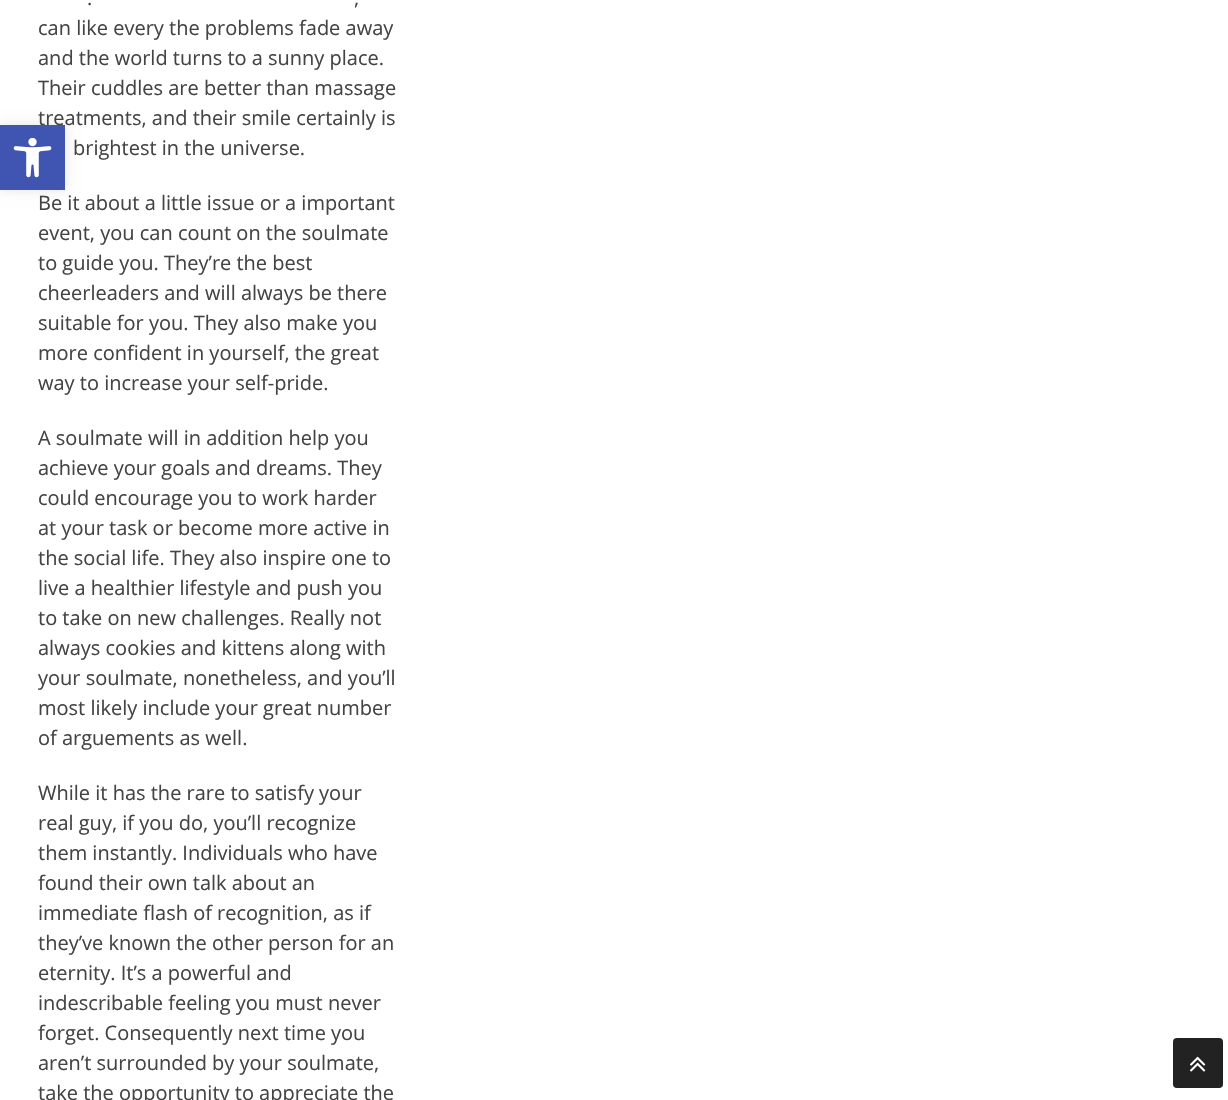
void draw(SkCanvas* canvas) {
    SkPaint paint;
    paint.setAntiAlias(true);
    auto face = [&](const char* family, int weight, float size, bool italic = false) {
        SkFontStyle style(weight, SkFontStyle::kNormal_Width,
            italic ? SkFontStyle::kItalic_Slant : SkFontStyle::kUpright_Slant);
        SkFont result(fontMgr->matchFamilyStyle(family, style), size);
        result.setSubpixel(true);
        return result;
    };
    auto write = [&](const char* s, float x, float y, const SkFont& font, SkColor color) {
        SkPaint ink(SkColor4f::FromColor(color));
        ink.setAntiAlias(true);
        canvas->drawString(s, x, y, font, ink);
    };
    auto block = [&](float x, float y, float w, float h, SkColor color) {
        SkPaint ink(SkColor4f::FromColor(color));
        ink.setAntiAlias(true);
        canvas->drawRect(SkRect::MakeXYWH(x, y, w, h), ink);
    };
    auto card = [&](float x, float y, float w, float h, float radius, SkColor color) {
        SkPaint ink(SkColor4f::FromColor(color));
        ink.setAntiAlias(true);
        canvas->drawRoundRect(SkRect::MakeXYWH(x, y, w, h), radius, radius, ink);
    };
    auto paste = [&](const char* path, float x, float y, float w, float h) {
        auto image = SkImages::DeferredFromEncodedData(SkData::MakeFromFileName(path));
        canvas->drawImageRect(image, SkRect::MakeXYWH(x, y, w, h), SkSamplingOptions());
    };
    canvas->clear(SK_ColorWHITE);
    auto kFont1 = face("Open Sans", 400, 20);
    write(".", 87, 5, kFont1, SkColorSetRGB(68, 68, 68));
    write(",", 354, 5, kFont1, SkColorSetRGB(68, 68, 68));
    write("can like every the problems fade away", 38, 35, kFont1, SkColorSetRGB(68, 68, 68));
    write("and the world turns to a sunny place.", 38, 65, kFont1, SkColorSetRGB(68, 68, 68));
    write("Their cuddles are better than massage", 38, 95, kFont1, SkColorSetRGB(68, 68, 68));
    write("treatments, and their smile certainly is", 38, 125, kFont1, SkColorSetRGB(68, 68, 68));
    write("brightest in the universe.", 73, 155, kFont1, SkColorSetRGB(68, 68, 68));
    write("Be it about a little issue or a important", 38, 210, kFont1, SkColorSetRGB(68, 68, 68));
    write("event, you can count on the soulmate", 38, 240, kFont1, SkColorSetRGB(68, 68, 68));
    write("to guide you. They’re the best", 38, 270, kFont1, SkColorSetRGB(68, 68, 68));
    write("cheerleaders and will always be there", 38, 300, kFont1, SkColorSetRGB(68, 68, 68));
    write("suitable for you. They also make you", 38, 330, kFont1, SkColorSetRGB(68, 68, 68));
    write("more confident in yourself, the great", 38, 360, kFont1, SkColorSetRGB(68, 68, 68));
    write("way to increase your self-pride.", 38, 390, kFont1, SkColorSetRGB(68, 68, 68));
    write("A soulmate will in addition help you", 38, 445, kFont1, SkColorSetRGB(68, 68, 68));
    write("achieve your goals and dreams. They", 38, 475, kFont1, SkColorSetRGB(68, 68, 68));
    write("could encourage you to work harder", 38, 505, kFont1, SkColorSetRGB(68, 68, 68));
    write("at your task or become more active in", 38, 535, kFont1, SkColorSetRGB(68, 68, 68));
    write("the social life. They also inspire one to", 38, 565, kFont1, SkColorSetRGB(68, 68, 68));
    write("live a healthier lifestyle and push you", 38, 595, kFont1, SkColorSetRGB(68, 68, 68));
    write("to take on new challenges. Really not", 38, 625, kFont1, SkColorSetRGB(68, 68, 68));
    write("always cookies and kittens along with", 38, 655, kFont1, SkColorSetRGB(68, 68, 68));
    write("your soulmate, nonetheless, and you’ll", 38, 685, kFont1, SkColorSetRGB(68, 68, 68));
    write("most likely include your great number", 38, 715, kFont1, SkColorSetRGB(68, 68, 68));
    write("of arguements as well.", 38, 745, kFont1, SkColorSetRGB(68, 68, 68));
    write("While it has the rare to satisfy your", 38, 800, kFont1, SkColorSetRGB(68, 68, 68));
    write("real guy, if you do, you’ll recognize", 38, 830, kFont1, SkColorSetRGB(68, 68, 68));
    write("them instantly. Individuals who have", 38, 860, kFont1, SkColorSetRGB(68, 68, 68));
    write("found their own talk about an", 38, 890, kFont1, SkColorSetRGB(68, 68, 68));
    write("immediate flash of recognition, as if", 38, 920, kFont1, SkColorSetRGB(68, 68, 68));
    write("they’ve known the other person for an", 38, 950, kFont1, SkColorSetRGB(68, 68, 68));
    write("eternity. It’s a powerful and", 38, 980, kFont1, SkColorSetRGB(68, 68, 68));
    write("indescribable feeling you must never", 38, 1010, kFont1, SkColorSetRGB(68, 68, 68));
    write("forget. Consequently next time you", 38, 1040, kFont1, SkColorSetRGB(68, 68, 68));
    write("aren’t surrounded by your soulmate,", 38, 1070, kFont1, SkColorSetRGB(68, 68, 68));
    write("take the opportunity to appreciate the", 38, 1100, kFont1, SkColorSetRGB(68, 68, 68));
    paint.setColor(SkColorSetARGB(26, 0, 0, 0));
    paint.setMaskFilter(SkMaskFilter::MakeBlur(kNormal_SkBlurStyle, 6));
    canvas->drawRect(SkRect::MakeXYWH(0, 125, 65, 65), paint);
    paint.setMaskFilter(nullptr);
    block(0, 125, 65, 65, SkColorSetRGB(64, 84, 178));
    paste("pic1.png", 13, 138, 39, 40);
    card(1173, 1038, 50, 50, 4, SkColorSetRGB(34, 34, 34));
    paste("pic2.png", 1190, 1056, 16, 16);
}
